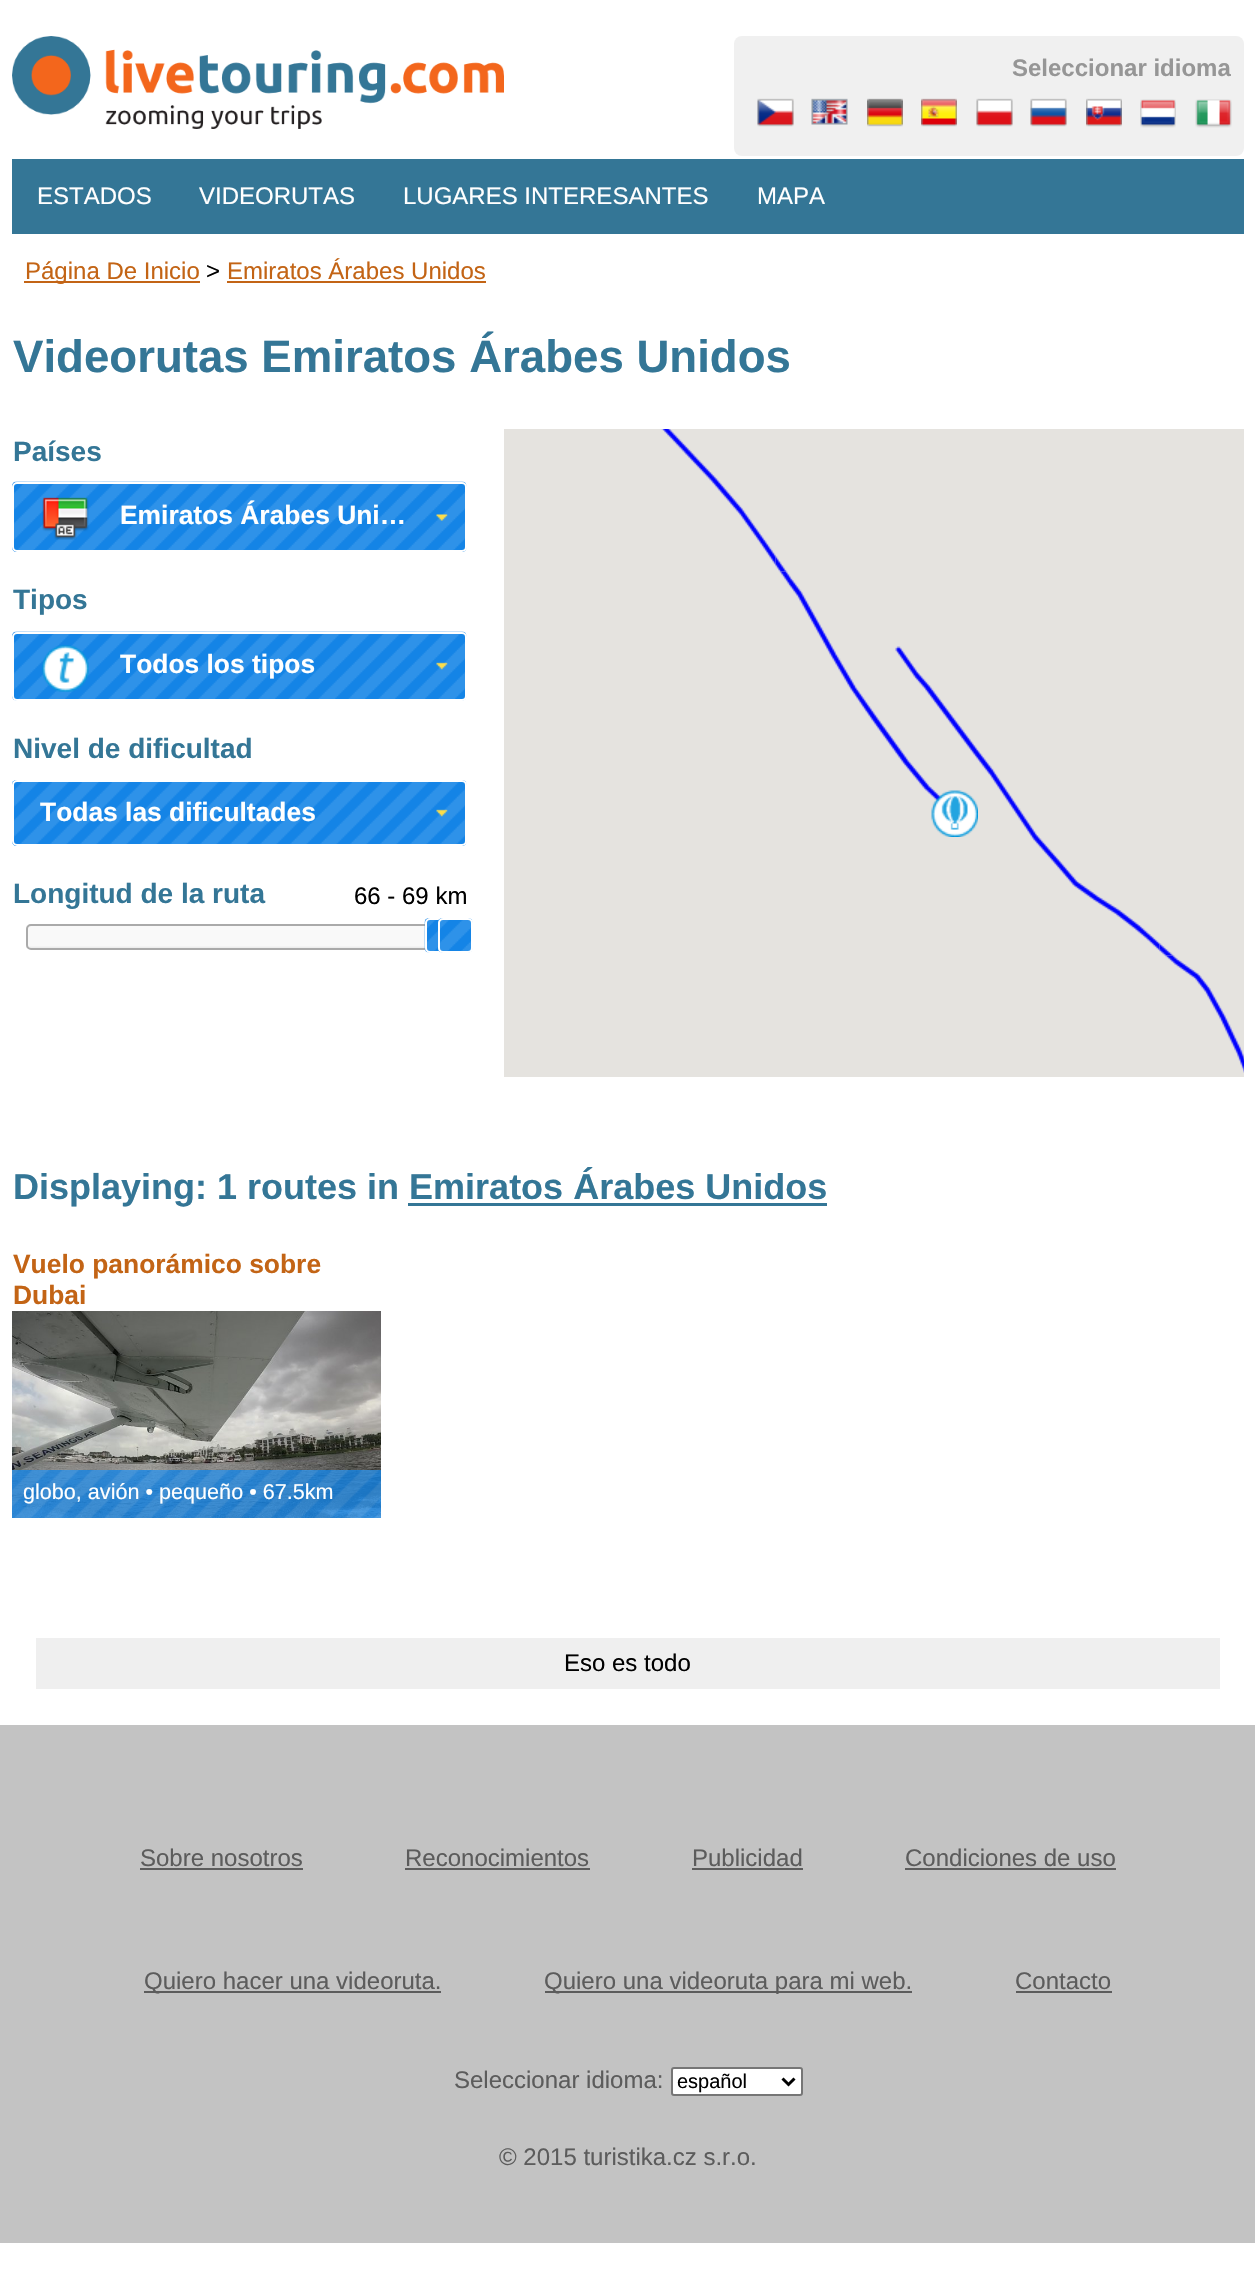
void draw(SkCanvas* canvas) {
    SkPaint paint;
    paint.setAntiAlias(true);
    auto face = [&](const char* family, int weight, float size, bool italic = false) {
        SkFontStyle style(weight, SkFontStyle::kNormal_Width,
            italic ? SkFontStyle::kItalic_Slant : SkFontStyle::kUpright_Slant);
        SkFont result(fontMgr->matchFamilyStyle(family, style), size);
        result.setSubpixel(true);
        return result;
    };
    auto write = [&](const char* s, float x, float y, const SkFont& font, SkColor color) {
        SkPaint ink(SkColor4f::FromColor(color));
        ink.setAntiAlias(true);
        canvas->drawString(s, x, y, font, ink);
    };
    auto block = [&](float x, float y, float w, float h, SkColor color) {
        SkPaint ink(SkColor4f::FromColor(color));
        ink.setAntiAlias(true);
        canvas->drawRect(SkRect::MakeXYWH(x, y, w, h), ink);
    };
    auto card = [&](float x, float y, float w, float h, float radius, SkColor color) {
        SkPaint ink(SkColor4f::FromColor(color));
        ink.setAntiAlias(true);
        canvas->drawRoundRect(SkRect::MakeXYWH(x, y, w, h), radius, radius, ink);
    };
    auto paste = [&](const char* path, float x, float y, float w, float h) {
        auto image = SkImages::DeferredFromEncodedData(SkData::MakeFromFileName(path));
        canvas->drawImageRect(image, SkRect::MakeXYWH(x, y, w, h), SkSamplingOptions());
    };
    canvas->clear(SK_ColorWHITE);
    paste("pic1.png", 12, 36, 492, 93);
    card(734, 36, 510, 120, 8, SkColorSetRGB(240, 240, 240));
    auto kFont1 = face("Liberation Sans", 700, 24);
    write("Seleccionar idioma", 1012, 76, kFont1, SkColorSetRGB(150, 150, 150));
    paste("pic2.png", 757, 98, 37, 29);
    paste("pic3.png", 811, 98, 37, 27);
    paste("pic4.png", 867, 98, 36, 29);
    paste("pic5.png", 921, 98, 36, 29);
    paste("pic6.png", 976, 98, 37, 29);
    paste("pic7.png", 1030, 98, 37, 29);
    paste("pic8.png", 1086, 98, 36, 29);
    paste("pic9.png", 1140, 99, 36, 29);
    paste("pic10.png", 1195, 99, 37, 29);
    block(12, 159, 1232, 75, SkColorSetRGB(52, 118, 150));
    auto kFont2 = face("Liberation Sans", 400, 24);
    write("ESTADOS", 37, 204, kFont2, SK_ColorWHITE);
    write("VIDEORUTAS", 199, 204, kFont2, SK_ColorWHITE);
    write("LUGARES INTERESANTES", 403, 204, kFont2, SK_ColorWHITE);
    write("MAPA", 757, 204, kFont2, SK_ColorWHITE);
    block(24, 281, 176, 2, SkColorSetRGB(195, 100, 21));
    write("Página De Inicio", 25, 279, kFont2, SkColorSetRGB(195, 100, 21));
    write(">", 206, 279, kFont2, SK_ColorBLACK);
    write("Emiratos Árabes Unidos", 227, 279, kFont2, SkColorSetRGB(195, 100, 21));
    block(227, 281, 259, 2, SkColorSetRGB(195, 100, 21));
    auto kFont3 = face("Liberation Sans", 700, 45.6f);
    write("Videorutas Emiratos Árabes Unidos", 13, 372, kFont3, SkColorSetRGB(52, 118, 150));
    auto kFont4 = face("Liberation Sans", 700, 28);
    write("Países", 13, 461, kFont4, SkColorSetRGB(52, 118, 150));
    paste("pic11.png", 12, 481, 455, 71);
    paint.setStyle(SkPaint::kStroke_Style);
    paint.setStrokeWidth(2);
    paint.setColor(SK_ColorWHITE);
    canvas->drawRoundRect(SkRect::MakeXYWH(13, 483, 453, 68), 4, 4, paint);
    paste("pic12.png", 42, 497, 47, 43);
    auto kFont5 = face("Liberation Sans", 700, 26.4f);
    write("Emiratos Árabes Uni…", 120, 524, kFont5, SK_ColorWHITE);
    paste("pic13.png", 436, 514, 12, 7);
    write("Tipos", 13, 609, kFont4, SkColorSetRGB(52, 118, 150));
    paste("pic14.png", 12, 631, 455, 70);
    canvas->drawRoundRect(SkRect::MakeXYWH(13, 633, 453, 67), 4, 4, paint);
    paste("pic15.png", 42, 645, 47, 47);
    write("Todos los tipos", 120, 673, kFont5, SK_ColorWHITE);
    paste("pic16.png", 436, 662, 12, 8);
    write("Nivel de dificultad", 13, 758, kFont4, SkColorSetRGB(52, 118, 150));
    paste("pic17.png", 12, 780, 455, 66);
    canvas->drawRoundRect(SkRect::MakeXYWH(13, 781, 453, 64), 4, 4, paint);
    write("Todas las dificultades", 40, 821, kFont5, SK_ColorWHITE);
    paste("pic18.png", 436, 809, 12, 8);
    write("Longitud de la ruta", 13, 903, kFont4, SkColorSetRGB(52, 118, 150));
    write("66 - 69 km", 354, 904, kFont2, SK_ColorBLACK);
    paste("pic19.png", 26, 924, 399, 24);
    paint.setColor(SkColorSetRGB(170, 170, 170));
    canvas->drawRoundRect(SkRect::MakeXYWH(27, 925, 427, 24), 4, 4, paint);
    paste("pic20.png", 424, 918, 15, 35);
    paint.setColor(SK_ColorWHITE);
    canvas->drawRoundRect(SkRect::MakeXYWH(426, 919, 32, 33), 4, 4, paint);
    paste("pic21.png", 438, 918, 35, 35);
    canvas->drawRoundRect(SkRect::MakeXYWH(439, 919, 33, 33), 4, 4, paint);
    block(504, 429, 740, 648, SkColorSetRGB(229, 227, 223));
    paste("pic22.png", 661, 429, 115, 136);
    paste("pic24.png", 779, 571, 381, 380);
    paste("pic23.png", 775, 556, 12, 16);
    paste("pic25.png", 1159, 943, 15, 13);
    paste("pic26.png", 1165, 955, 79, 118);
    paste("pic27.png", 931, 790, 47, 47);
    auto kFont6 = face("Liberation Sans", 700, 36);
    write("Displaying: 1 routes in Emiratos Árabes Unidos", 13, 1199, kFont6, SkColorSetRGB(52, 118, 150));
    block(408, 1203, 419, 3, SkColorSetRGB(52, 118, 150));
    write("Vuelo panorámico sobre", 13, 1273, kFont5, SkColorSetRGB(195, 100, 21));
    write("Dubai", 13, 1304, kFont5, SkColorSetRGB(195, 100, 21));
    paste("pic28.png", 12, 1311, 369, 207);
    paste("pic29.png", 12, 1470, 369, 48);
    auto kFont7 = face("Liberation Sans", 400, 21.6f);
    write("globo, avión • pequeño • 67.5km", 23, 1499, kFont7, SK_ColorWHITE);
    block(36, 1638, 1184, 51, SkColorSetRGB(239, 239, 239));
    write("Eso es todo", 564, 1671, kFont2, SK_ColorBLACK);
    block(0, 1725, 1255, 518, SkColorSetRGB(195, 195, 195));
    write("Sobre nosotros", 140, 1866, kFont2, SkColorSetRGB(92, 92, 92));
    block(140, 1868, 163, 2, SkColorSetRGB(92, 92, 92));
    write("Reconocimientos", 405, 1866, kFont2, SkColorSetRGB(92, 92, 92));
    block(405, 1868, 185, 2, SkColorSetRGB(92, 92, 92));
    write("Publicidad", 692, 1866, kFont2, SkColorSetRGB(92, 92, 92));
    block(692, 1868, 111, 2, SkColorSetRGB(92, 92, 92));
    write("Condiciones de uso", 905, 1866, kFont2, SkColorSetRGB(92, 92, 92));
    block(905, 1868, 211, 2, SkColorSetRGB(92, 92, 92));
    block(144, 1991, 297, 2, SkColorSetRGB(92, 92, 92));
    write("Quiero hacer una videoruta.", 144, 1989, kFont2, SkColorSetRGB(92, 92, 92));
    block(545, 1991, 367, 2, SkColorSetRGB(92, 92, 92));
    write("Quiero una videoruta para mi web.", 544, 1989, kFont2, SkColorSetRGB(92, 92, 92));
    write("Contacto", 1015, 1989, kFont2, SkColorSetRGB(92, 92, 92));
    block(1016, 1991, 96, 2, SkColorSetRGB(92, 92, 92));
    write("Seleccionar idioma:", 454, 2088, kFont2, SkColorSetRGB(92, 92, 92));
    paint.setStyle(SkPaint::kFill_Style);
    canvas->drawRoundRect(SkRect::MakeXYWH(672, 2068, 130, 27), 2, 2, paint);
    paint.setStyle(SkPaint::kStroke_Style);
    paint.setColor(SkColorSetRGB(118, 118, 118));
    canvas->drawRoundRect(SkRect::MakeXYWH(672, 2068, 130, 27), 2, 2, paint);
    paint.setStrokeWidth(3);
    paint.setColor(SK_ColorBLACK);
    canvas->drawPath(SkPathBuilder().moveTo(782.5f, 2078.5f).lineTo(788.5f, 2084.5f).lineTo(794.5f, 2078.5f).detach(), paint);
    auto kFont8 = face("Liberation Sans", 400, 20);
    write("español", 677, 2088, kFont8, SK_ColorBLACK);
    write("© 2015 turistika.cz s.r.o.", 499, 2165, kFont2, SkColorSetRGB(92, 92, 92));
}
